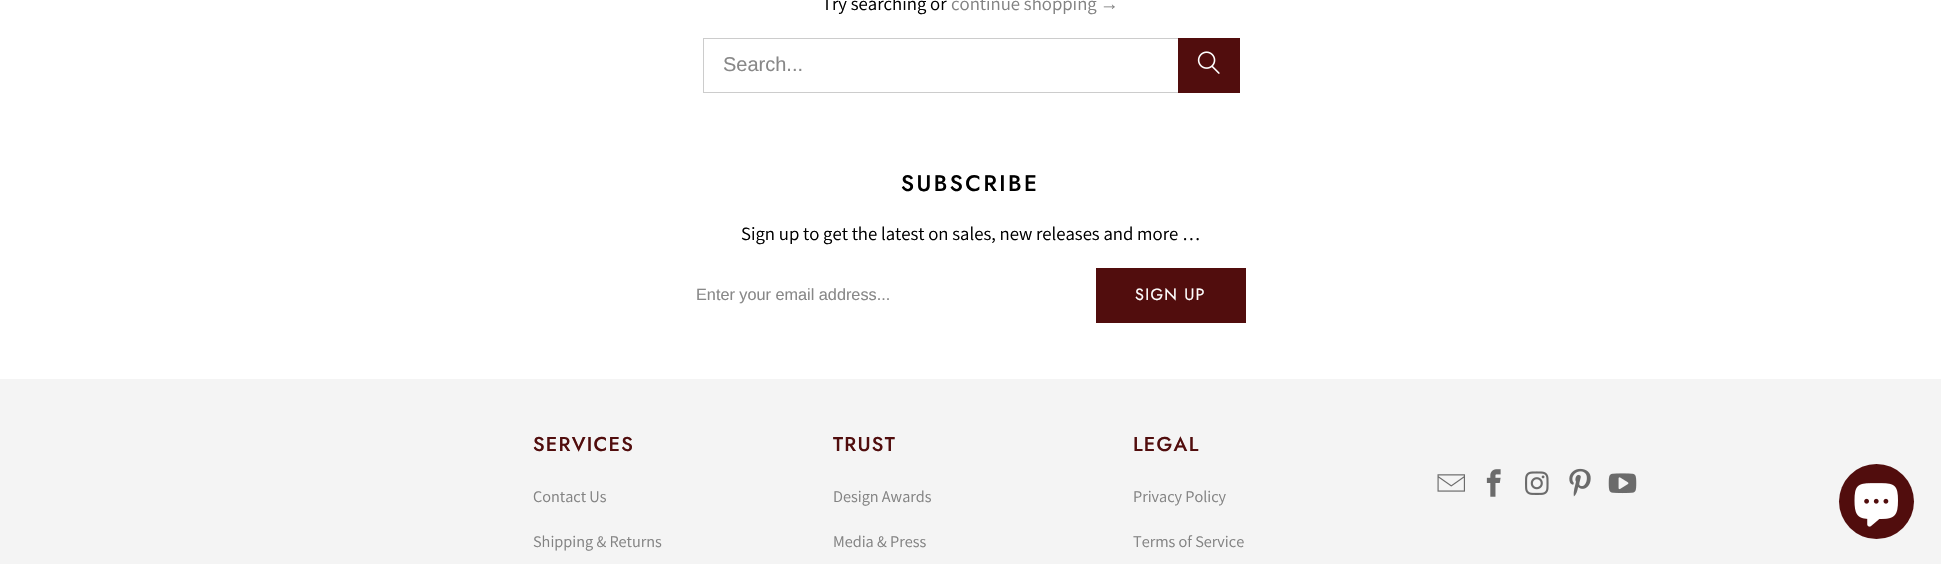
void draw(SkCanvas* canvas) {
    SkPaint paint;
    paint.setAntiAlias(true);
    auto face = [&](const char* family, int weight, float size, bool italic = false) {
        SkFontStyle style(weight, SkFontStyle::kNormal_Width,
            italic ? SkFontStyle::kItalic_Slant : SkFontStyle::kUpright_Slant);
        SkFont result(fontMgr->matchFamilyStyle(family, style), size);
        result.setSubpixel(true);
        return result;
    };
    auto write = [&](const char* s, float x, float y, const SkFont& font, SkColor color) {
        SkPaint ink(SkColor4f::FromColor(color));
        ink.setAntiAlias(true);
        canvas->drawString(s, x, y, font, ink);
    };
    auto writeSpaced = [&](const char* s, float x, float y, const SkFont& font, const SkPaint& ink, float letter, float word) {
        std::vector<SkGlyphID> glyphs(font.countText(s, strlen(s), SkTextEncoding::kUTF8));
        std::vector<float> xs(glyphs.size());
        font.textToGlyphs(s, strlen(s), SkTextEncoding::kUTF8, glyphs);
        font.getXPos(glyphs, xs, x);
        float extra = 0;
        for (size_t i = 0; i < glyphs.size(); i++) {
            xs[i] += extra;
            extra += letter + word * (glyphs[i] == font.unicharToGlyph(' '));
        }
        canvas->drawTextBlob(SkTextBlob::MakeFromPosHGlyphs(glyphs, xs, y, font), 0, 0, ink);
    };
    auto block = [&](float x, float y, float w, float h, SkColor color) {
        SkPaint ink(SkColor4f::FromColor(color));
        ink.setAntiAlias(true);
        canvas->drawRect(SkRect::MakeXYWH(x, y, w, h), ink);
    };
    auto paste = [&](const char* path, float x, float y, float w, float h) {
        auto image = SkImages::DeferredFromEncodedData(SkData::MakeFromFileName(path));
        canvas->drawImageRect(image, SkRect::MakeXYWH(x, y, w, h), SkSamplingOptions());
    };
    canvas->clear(SK_ColorWHITE);
    auto kFont1 = face("Assistant", 400, 18.75f);
    write("Try searching or", 822, 10, kFont1, SK_ColorBLACK);
    write("continue shopping", 951, 10, kFont1, SkColorSetRGB(130, 130, 130));
    auto kFont2 = face("Liberation Sans", 400, 18.75f);
    write("→", 1100, 10, kFont2, SkColorSetRGB(130, 130, 130));
    paint.setStyle(SkPaint::kStroke_Style);
    paint.setStrokeWidth(1);
    paint.setColor(SkColorSetRGB(204, 204, 204));
    canvas->drawRect(SkRect::MakeXYWH(703.5f, 38.5f, 536, 54), paint);
    auto kFont3 = face("Liberation Sans", 400, 20);
    write("Search...", 723, 71, kFont3, SkColorSetRGB(136, 136, 136));
    block(1178, 38, 62, 55, SkColorSetRGB(81, 13, 13));
    paste("pic1.png", 1197, 51, 23, 23);
    auto kFont4 = face("Jost", 500, 22.5f);
    paint.setStyle(SkPaint::kFill_Style);
    paint.setColor(SK_ColorBLACK);
    writeSpaced("SUBSCRIBE", 901, 191, kFont4, paint, 2.5f, 0);
    write("Sign up to get the latest on sales, new releases and more …", 741, 240, kFont1, SK_ColorBLACK);
    auto kFont5 = face("Liberation Sans", 400, 16.25f);
    write("Enter your email address...", 696, 300, kFont5, SkColorSetRGB(136, 136, 136));
    block(1096, 268, 150, 55, SkColorSetRGB(81, 13, 13));
    auto kFont6 = face("Jost", 400, 16.25f);
    paint.setColor(SK_ColorWHITE);
    writeSpaced("SIGN UP", 1135, 300, kFont6, paint, 1.25f, 0);
    block(0, 379, 1941, 185, SkColorSetRGB(244, 244, 244));
    auto kFont7 = face("Jost", 500, 20);
    paint.setColor(SkColorSetRGB(81, 13, 13));
    writeSpaced("SERVICES", 533, 451, kFont7, paint, 1.25f, 0);
    auto kFont8 = face("Assistant", 400, 16.25f);
    write("Contact Us", 533, 502, kFont8, SkColorSetRGB(130, 130, 130));
    write("Shipping & Returns", 533, 547, kFont8, SkColorSetRGB(130, 130, 130));
    writeSpaced("TRUST", 833, 451, kFont7, paint, 1.25f, 0);
    write("Design Awards", 833, 502, kFont8, SkColorSetRGB(130, 130, 130));
    write("Media & Press", 833, 547, kFont8, SkColorSetRGB(130, 130, 130));
    writeSpaced("LEGAL", 1133, 451, kFont7, paint, 1.25f, 0);
    write("Privacy Policy", 1133, 502, kFont8, SkColorSetRGB(130, 130, 130));
    write("Terms of Service", 1133, 547, kFont8, SkColorSetRGB(130, 130, 130));
    paste("pic2.png", 1437, 474, 28, 18);
    paste("pic3.png", 1486, 469, 15, 28);
    paste("pic4.png", 1525, 471, 24, 24);
    paste("pic5.png", 1569, 468, 22, 29);
    paste("pic6.png", 1608, 473, 29, 21);
    canvas->drawCircle(1876.5f, 501.5f, 37.5f, paint);
    paste("pic7.png", 1854, 483, 44, 44);
}
